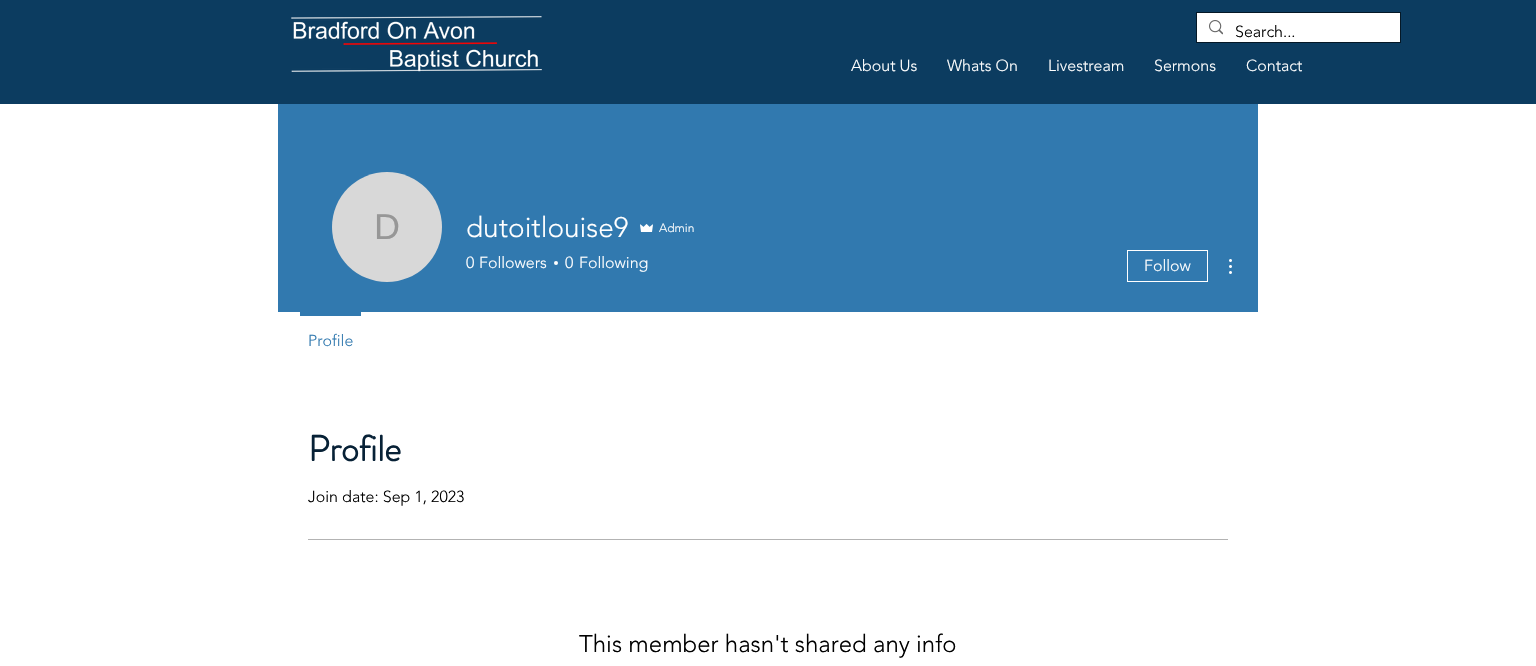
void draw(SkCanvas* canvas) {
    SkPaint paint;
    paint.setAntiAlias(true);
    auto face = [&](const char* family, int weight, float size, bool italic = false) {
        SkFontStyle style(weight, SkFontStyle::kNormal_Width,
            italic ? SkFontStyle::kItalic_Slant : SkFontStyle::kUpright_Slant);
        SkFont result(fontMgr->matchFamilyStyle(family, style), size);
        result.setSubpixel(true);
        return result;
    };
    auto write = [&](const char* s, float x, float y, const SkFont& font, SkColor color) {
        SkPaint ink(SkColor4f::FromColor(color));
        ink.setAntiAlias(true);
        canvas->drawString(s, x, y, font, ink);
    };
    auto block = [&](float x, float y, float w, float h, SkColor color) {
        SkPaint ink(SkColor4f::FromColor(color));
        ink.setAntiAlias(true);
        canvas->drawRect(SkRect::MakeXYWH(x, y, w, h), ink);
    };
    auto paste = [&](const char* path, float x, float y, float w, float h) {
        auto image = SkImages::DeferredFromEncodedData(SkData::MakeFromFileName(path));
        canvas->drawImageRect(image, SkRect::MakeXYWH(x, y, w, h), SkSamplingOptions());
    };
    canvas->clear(SK_ColorWHITE);
    block(0, 0, 1536, 104, SkColorSetRGB(12, 60, 96));
    paste("pic1.png", 291, 16, 251, 56);
    paint.setStyle(SkPaint::kStroke_Style);
    paint.setStrokeWidth(1);
    paint.setColor(SkColorSetRGB(5, 24, 38));
    canvas->drawRect(SkRect::MakeXYWH(1196.5f, 12.5f, 204, 30), paint);
    block(1197, 13, 203, 29, SK_ColorWHITE);
    paste("pic2.png", 1209, 20, 14, 15);
    auto kFont1 = face("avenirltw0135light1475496", 300, 16);
    write("Search...", 1235, 37, kFont1, SK_ColorBLACK);
    write("About Us", 851, 71, kFont1, SK_ColorWHITE);
    write("Whats On", 947, 71, kFont1, SK_ColorWHITE);
    write("Livestream", 1048, 71, kFont1, SK_ColorWHITE);
    write("Sermons", 1154, 71, kFont1, SK_ColorWHITE);
    write("Contact", 1246, 71, kFont1, SK_ColorWHITE);
    block(278, 104, 980, 208, SkColorSetRGB(49, 121, 175));
    paint.setStyle(SkPaint::kFill_Style);
    paint.setColor(SkColorSetRGB(216, 216, 216));
    canvas->drawCircle(387, 227, 55, paint);
    auto kFont2 = face("Liberation Sans", 400, 36);
    write("D", 374, 239, kFont2, SkColorSetRGB(151, 151, 151));
    auto kFont3 = face("avenirltw0135light1475496", 300, 28);
    write("dutoitlouise9", 466, 237, kFont3, SK_ColorWHITE);
    paste("pic3.png", 640, 224, 13, 8);
    auto kFont4 = face("avenirltw0135light1475496", 300, 12);
    write("Admin", 659, 232, kFont4, SK_ColorWHITE);
    write("0", 466, 268, kFont1, SK_ColorWHITE);
    write("Followers", 479, 268, kFont1, SK_ColorWHITE);
    paint.setColor(SK_ColorWHITE);
    canvas->drawCircle(556, 263, 2, paint);
    write("0", 565, 268, kFont1, SK_ColorWHITE);
    write("Following", 579, 268, kFont1, SK_ColorWHITE);
    paint.setStyle(SkPaint::kStroke_Style);
    canvas->drawRect(SkRect::MakeXYWH(1127.5f, 250.5f, 80, 31), paint);
    write("Follow", 1144, 271, kFont1, SK_ColorWHITE);
    paste("pic4.png", 1229, 259, 3, 15);
    block(300, 312, 61, 4, SkColorSetRGB(49, 121, 175));
    write("Profile", 308, 346, kFont1, SkColorSetRGB(49, 121, 175));
    auto kFont5 = face("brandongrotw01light", 700, 36);
    write("Profile", 308, 461, kFont5, SkColorSetRGB(7, 33, 54));
    write("Join date: Sep 1, 2023", 308, 502, kFont1, SK_ColorBLACK);
    block(308, 539, 920, 1, SkColorSetRGB(179, 179, 179));
    auto kFont6 = face("avenirltw0135light1475496", 300, 24);
    write("This member hasn't shared any info", 579, 652, kFont6, SK_ColorBLACK);
}
